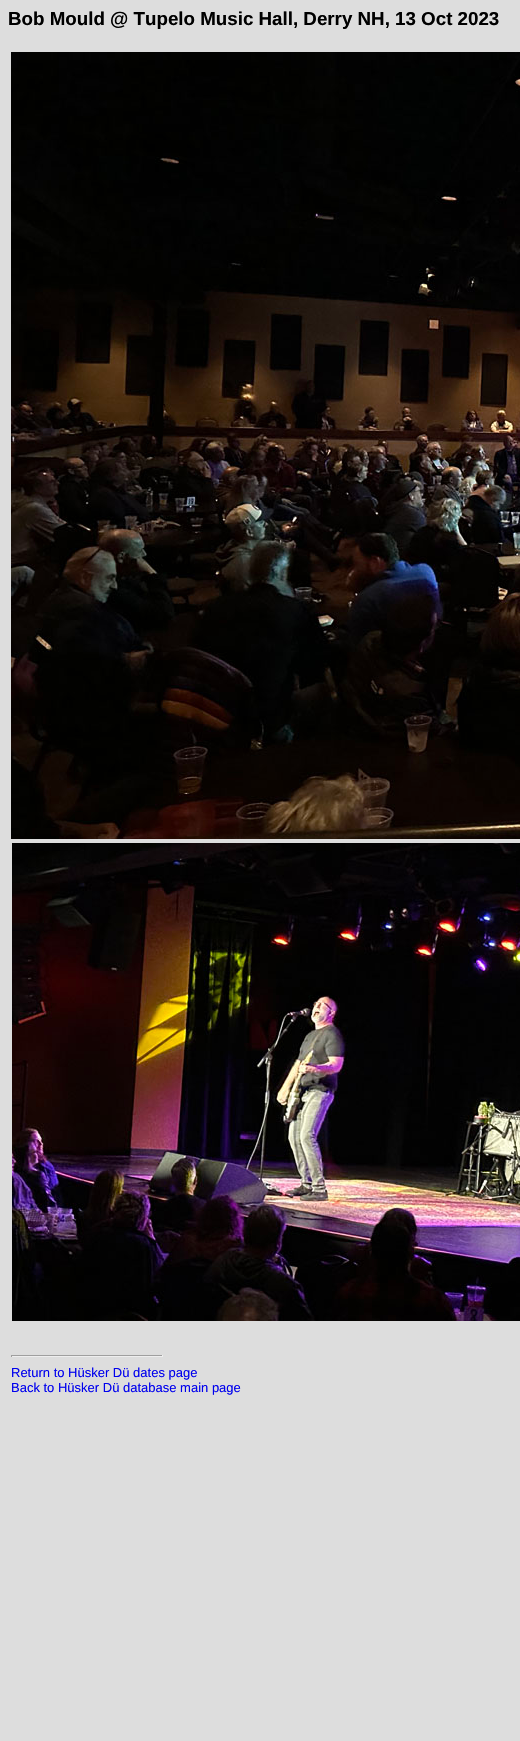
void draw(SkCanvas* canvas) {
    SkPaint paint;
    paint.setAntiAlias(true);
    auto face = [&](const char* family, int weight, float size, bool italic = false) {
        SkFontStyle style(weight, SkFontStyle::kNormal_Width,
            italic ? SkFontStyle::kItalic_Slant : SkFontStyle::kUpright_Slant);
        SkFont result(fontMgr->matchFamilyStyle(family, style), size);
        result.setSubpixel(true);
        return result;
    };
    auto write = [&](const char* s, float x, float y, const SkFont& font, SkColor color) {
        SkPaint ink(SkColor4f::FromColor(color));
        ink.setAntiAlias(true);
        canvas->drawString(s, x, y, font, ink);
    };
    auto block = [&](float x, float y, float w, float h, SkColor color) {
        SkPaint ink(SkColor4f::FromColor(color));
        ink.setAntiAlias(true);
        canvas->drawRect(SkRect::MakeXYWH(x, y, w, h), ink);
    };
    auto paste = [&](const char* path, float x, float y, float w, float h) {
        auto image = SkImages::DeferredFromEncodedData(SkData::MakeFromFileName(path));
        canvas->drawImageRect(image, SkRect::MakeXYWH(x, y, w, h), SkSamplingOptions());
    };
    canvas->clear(SkColorSetRGB(221, 221, 221));
    auto kFont1 = face("Liberation Sans", 700, 18.75f);
    write("Bob Mould @ Tupelo Music Hall, Derry NH, 13 Oct 2023", 8, 25, kFont1, SK_ColorBLACK);
    paste("pic1.png", 11, 52, 509, 787);
    paste("pic2.png", 12, 843, 508, 478);
    block(11, 1355, 152, 1, SkColorSetRGB(159, 159, 159));
    block(162, 1355, 1, 2, SkColorSetRGB(238, 238, 238));
    block(11, 1356, 152, 1, SkColorSetRGB(238, 238, 238));
    block(11, 1355, 1, 2, SkColorSetRGB(159, 159, 159));
    auto kFont2 = face("Liberation Sans", 400, 13);
    write("Return to Hüsker Dü dates page", 11, 1377, kFont2, SkColorSetRGB(0, 0, 238));
    write("Back to Hüsker Dü database main page", 11, 1392, kFont2, SkColorSetRGB(0, 0, 238));
}
